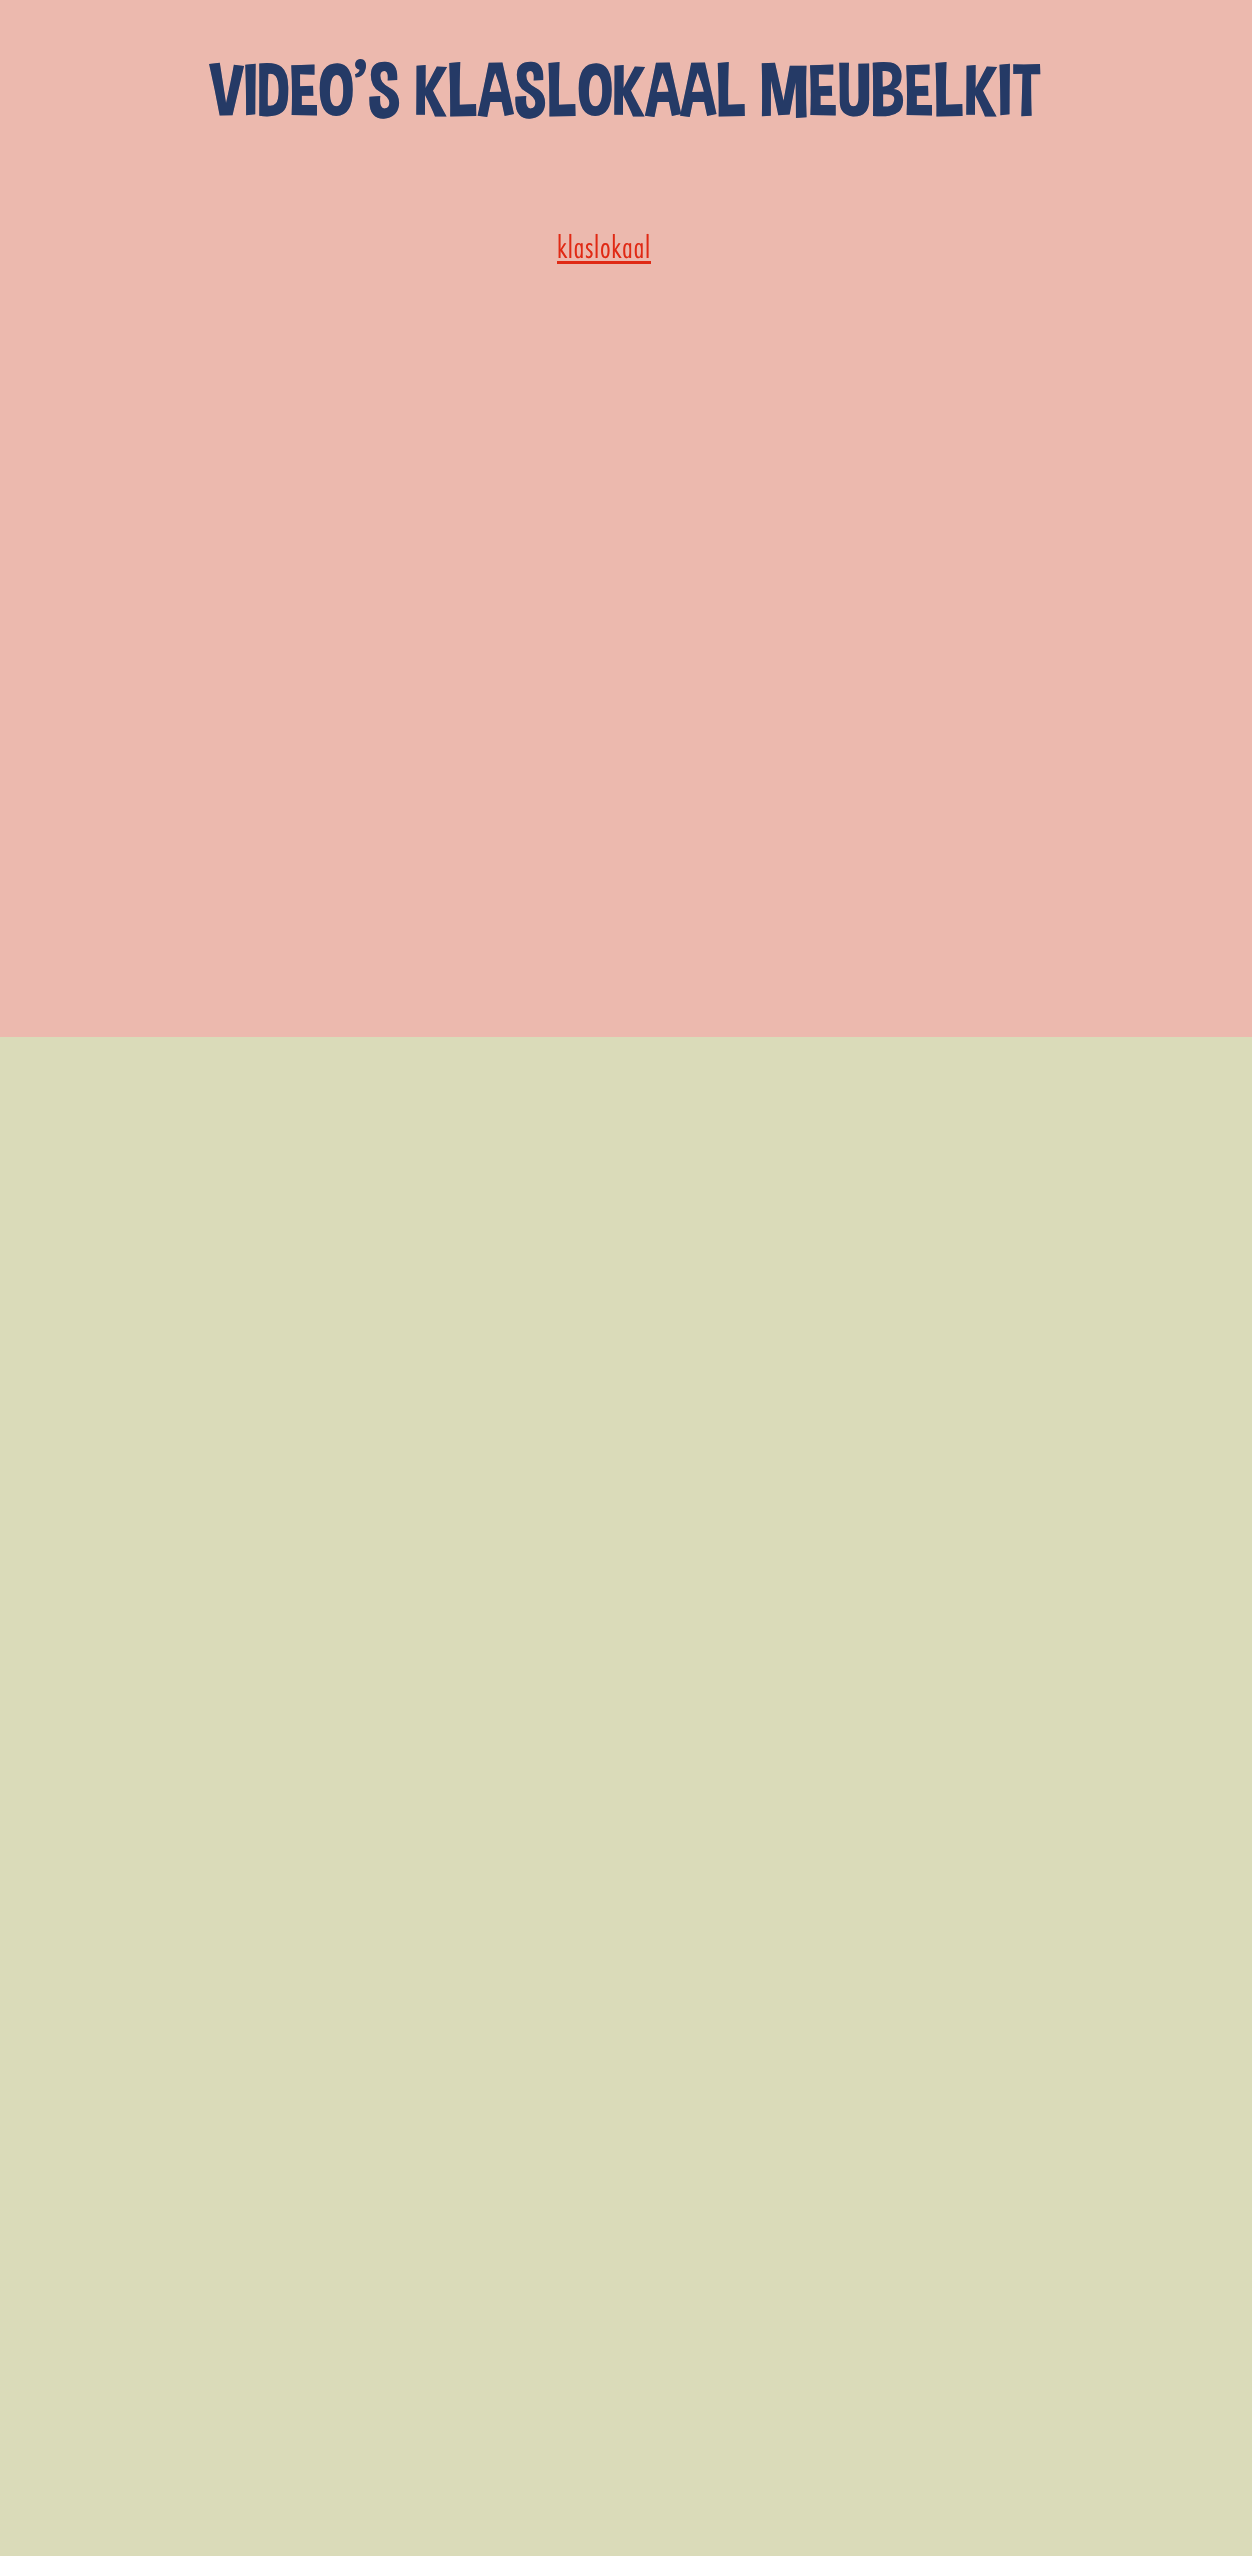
void draw(SkCanvas* canvas) {
    SkPaint paint;
    paint.setAntiAlias(true);
    auto face = [&](const char* family, int weight, float size, bool italic = false) {
        SkFontStyle style(weight, SkFontStyle::kNormal_Width,
            italic ? SkFontStyle::kItalic_Slant : SkFontStyle::kUpright_Slant);
        SkFont result(fontMgr->matchFamilyStyle(family, style), size);
        result.setSubpixel(true);
        return result;
    };
    auto write = [&](const char* s, float x, float y, const SkFont& font, SkColor color) {
        SkPaint ink(SkColor4f::FromColor(color));
        ink.setAntiAlias(true);
        canvas->drawString(s, x, y, font, ink);
    };
    auto writeSpaced = [&](const char* s, float x, float y, const SkFont& font, const SkPaint& ink, float letter, float word) {
        std::vector<SkGlyphID> glyphs(font.countText(s, strlen(s), SkTextEncoding::kUTF8));
        std::vector<float> xs(glyphs.size());
        font.textToGlyphs(s, strlen(s), SkTextEncoding::kUTF8, glyphs);
        font.getXPos(glyphs, xs, x);
        float extra = 0;
        for (size_t i = 0; i < glyphs.size(); i++) {
            xs[i] += extra;
            extra += letter + word * (glyphs[i] == font.unicharToGlyph(' '));
        }
        canvas->drawTextBlob(SkTextBlob::MakeFromPosHGlyphs(glyphs, xs, y, font), 0, 0, ink);
    };
    auto block = [&](float x, float y, float w, float h, SkColor color) {
        SkPaint ink(SkColor4f::FromColor(color));
        ink.setAntiAlias(true);
        canvas->drawRect(SkRect::MakeXYWH(x, y, w, h), ink);
    };
    canvas->clear(SkColorSetRGB(218, 219, 185));
    block(0, 0, 1252, 1037, SkColorSetRGB(236, 185, 174));
    auto kFont1 = face("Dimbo", 400, 75);
    write("VIDEO'S KLASLOKAAL MEUBELKIT", 210, 119, kFont1, SkColorSetRGB(37, 58, 102));
    auto kFont2 = face("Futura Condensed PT", 400, 33);
    paint.setColor(SkColorSetRGB(224, 41, 20));
    writeSpaced("klaslokaal", 557, 258, kFont2, paint, 0.75f, 0);
    block(557, 261, 94, 3, SkColorSetRGB(224, 41, 20));
}
